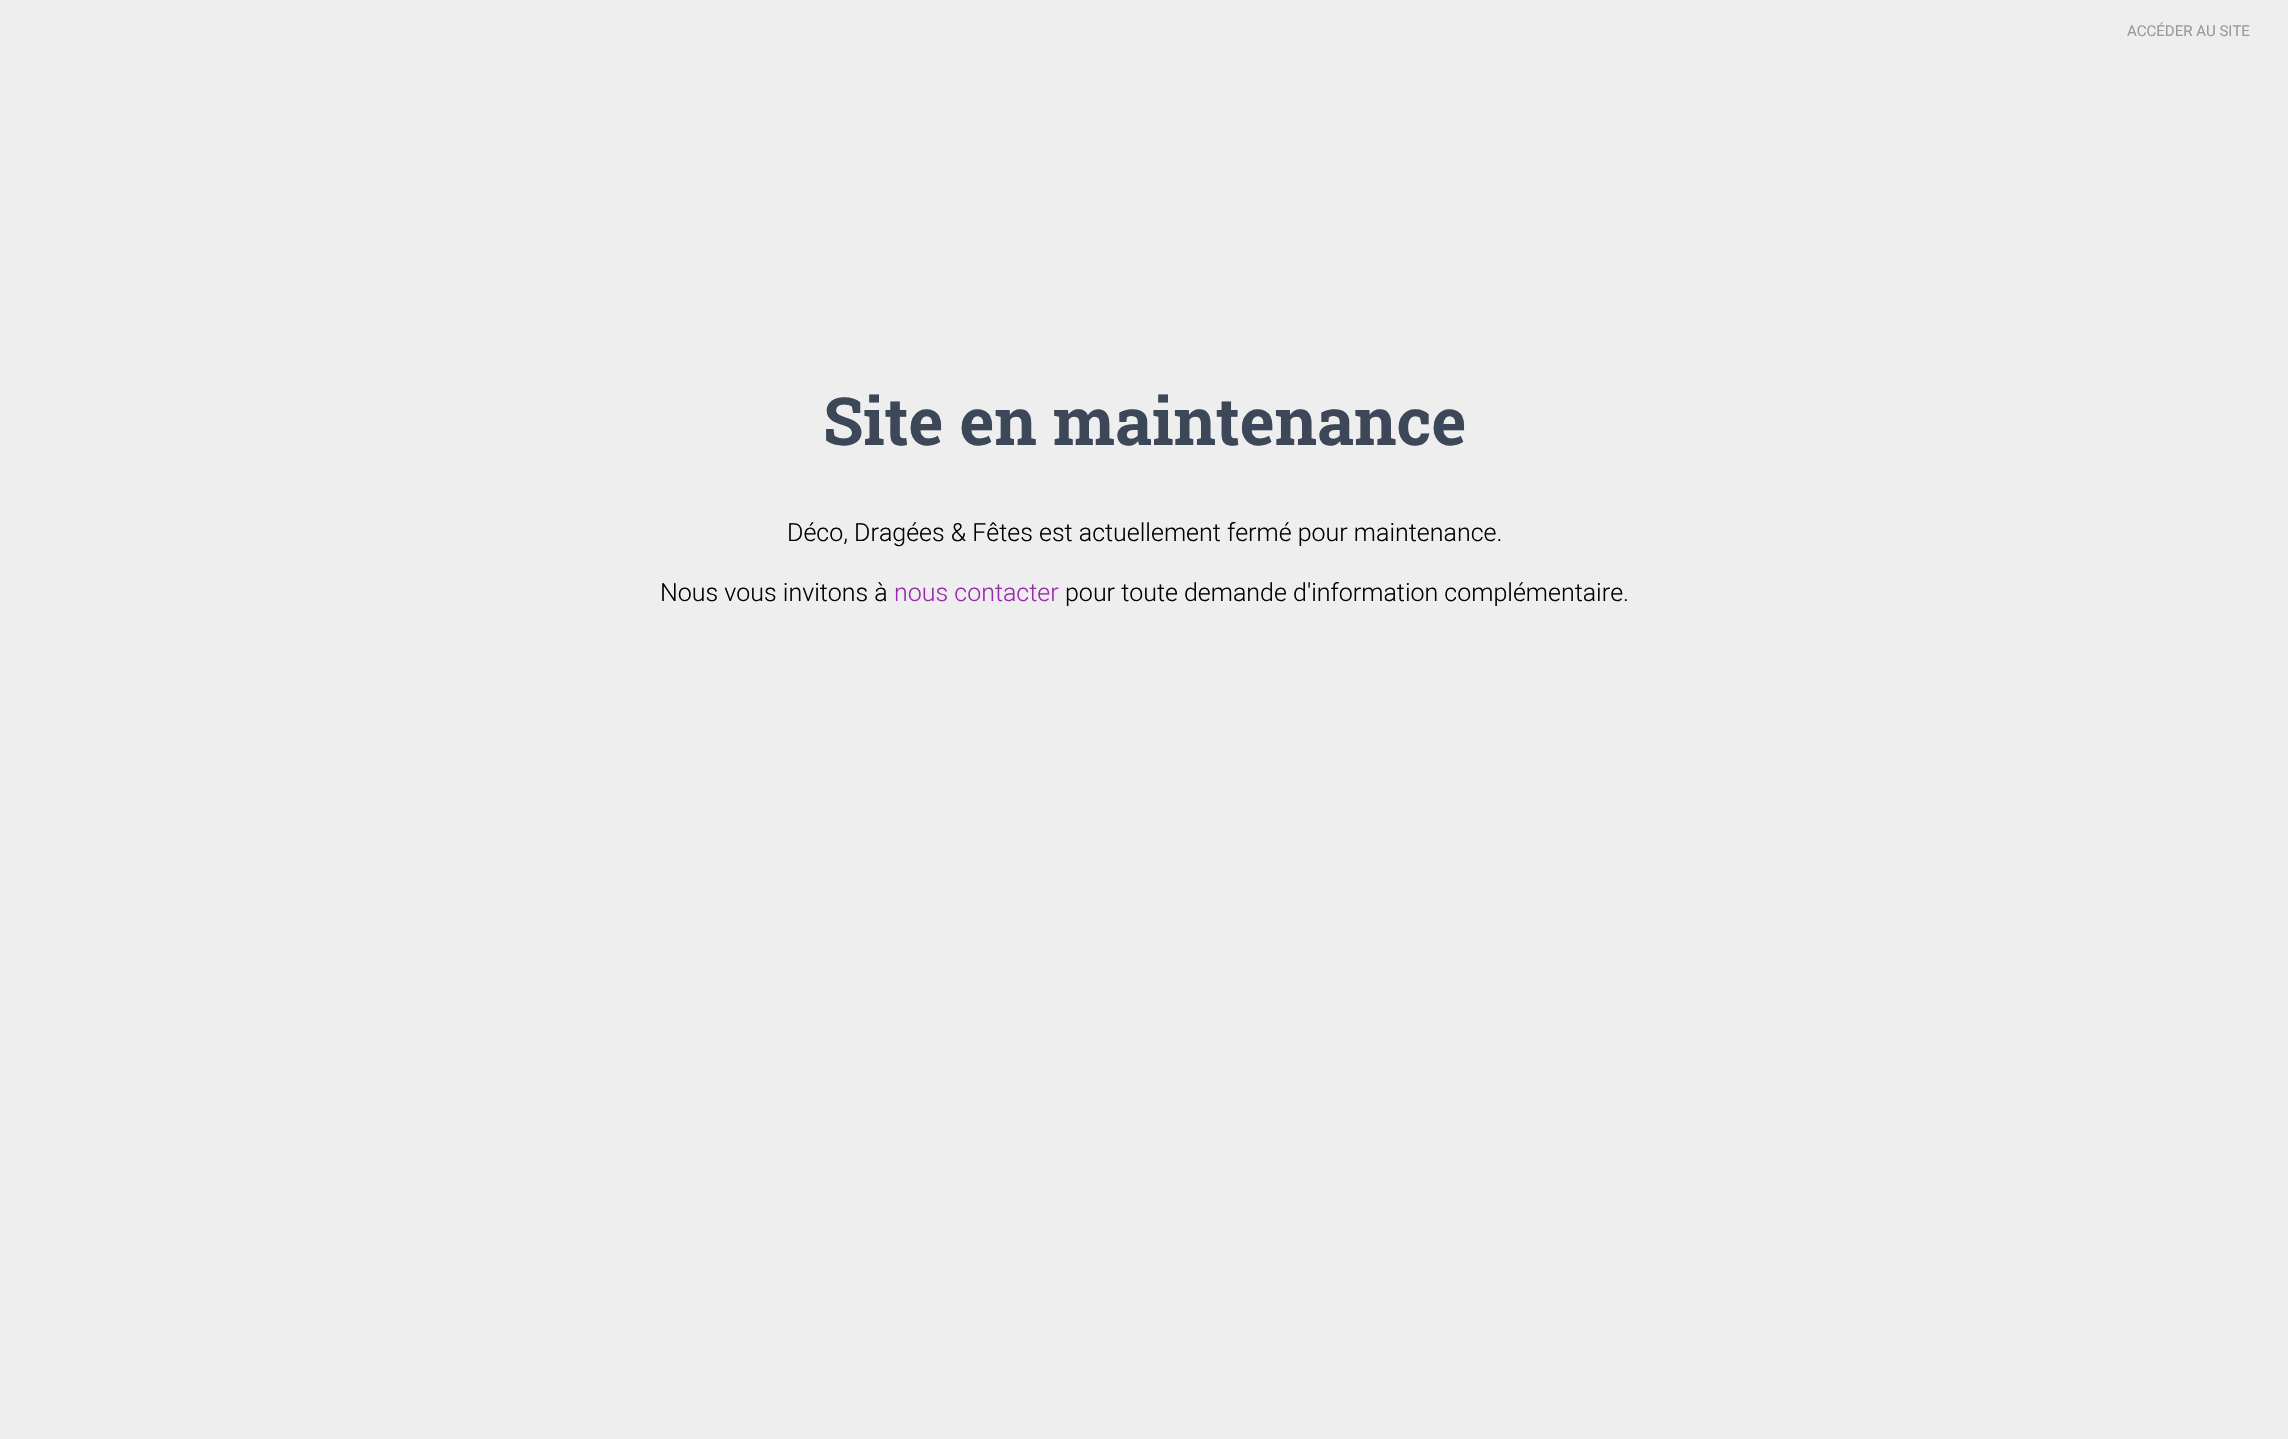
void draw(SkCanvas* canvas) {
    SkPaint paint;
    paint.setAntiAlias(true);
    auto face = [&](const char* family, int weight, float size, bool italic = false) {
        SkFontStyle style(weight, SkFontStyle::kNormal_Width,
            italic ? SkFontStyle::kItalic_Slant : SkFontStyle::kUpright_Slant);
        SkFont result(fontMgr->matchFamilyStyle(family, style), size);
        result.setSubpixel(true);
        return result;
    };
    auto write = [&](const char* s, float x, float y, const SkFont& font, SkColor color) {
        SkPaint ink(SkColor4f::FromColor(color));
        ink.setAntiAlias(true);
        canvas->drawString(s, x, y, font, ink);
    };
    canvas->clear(SkColorSetRGB(238, 238, 238));
    auto kFont1 = face("Roboto", 400, 15);
    write("ACCÉDER AU SITE", 2127, 36, kFont1, SkColorSetRGB(153, 153, 153));
    auto kFont2 = face("Roboto Slab", 700, 66.25f);
    write("Site en maintenance", 823, 445, kFont2, SkColorSetRGB(60, 72, 88));
    auto kFont3 = face("Roboto", 300, 25);
    write("Déco, Dragées & Fêtes est actuellement fermé pour maintenance.", 787, 541, kFont3, SK_ColorBLACK);
    write("Nous vous invitons à", 660, 601, kFont3, SK_ColorBLACK);
    write("nous contacter", 894, 601, kFont3, SkColorSetRGB(156, 39, 176));
    write("pour toute demande d'information complémentaire.", 1065, 601, kFont3, SK_ColorBLACK);
}
